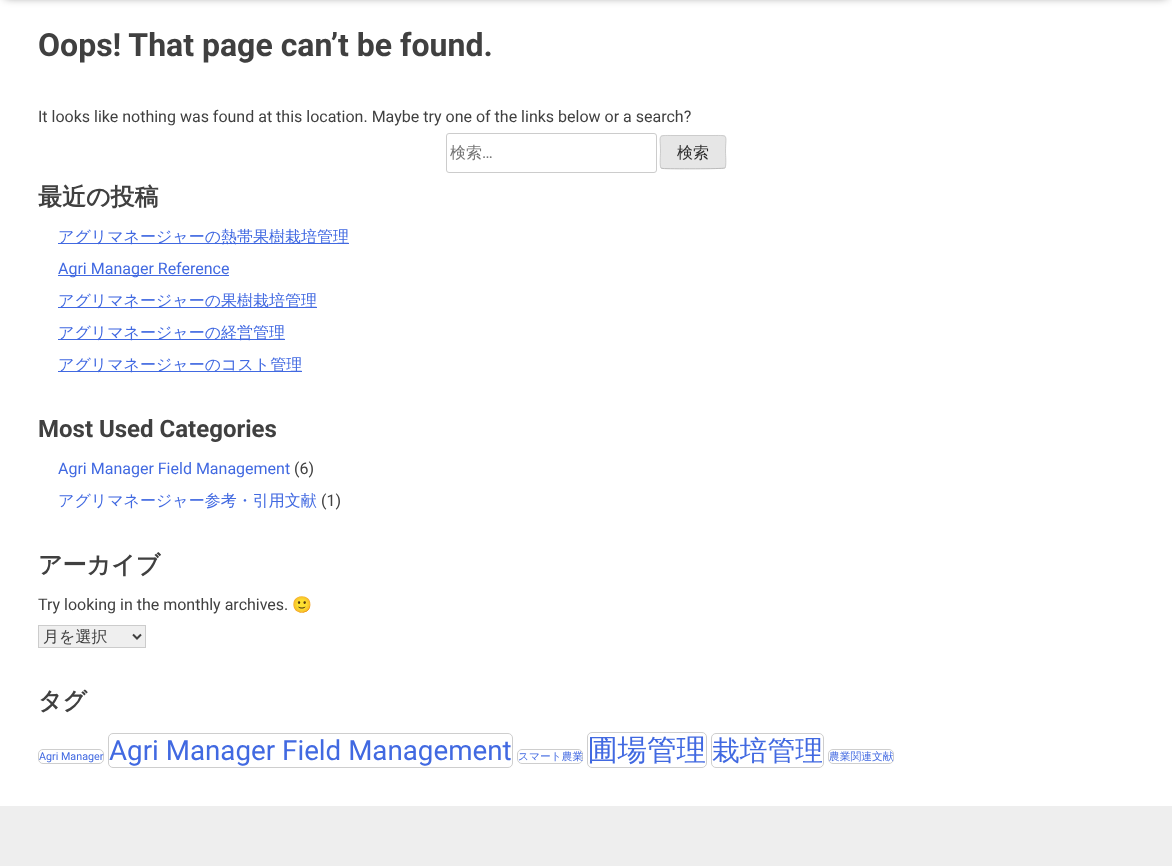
<svg xmlns="http://www.w3.org/2000/svg" width="1172" height="866">
<rect width="100%" height="100%" fill="#fff"/>
<rect x="5" y="-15" width="1162" height="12" fill="#00000080" filter="blur(5px)"/>
<text x="38" y="56" style="font-family:Roboto;font-size:32px;font-weight:bold;fill:#404040">Oops! That page can’t be found.</text>
<text x="38" y="122" style="font-family:Roboto;font-size:16px;fill:#404040">It looks like nothing was found at this location. Maybe try one of the links below or a search?</text>
<rect x="446.5" y="133.5" width="210" height="39" rx="2.5" fill="none" stroke="#ccc"/>
<text x="450" y="158" style="font-family:WenQuanYi Zen Hei;font-size:16px;font-weight:500;fill:#757575">検索</text>
<text x="482" y="158" style="font-family:Roboto;font-size:16px;fill:#757575">…</text>
<rect x="660" y="135" width="66" height="34" rx="3" fill="#e6e6e6"/>
<path d="M725 168h-.5c-1 1-56.5 1-61.5 .5l-2-.5" fill="none" stroke="#bbb"/>
<path d="M661 168c-1.5-2-.5-13.5-.5-16c0-18-4-16.5 12.5-16.5h40c16.5 0 12.5-1.5 12.5 16.5c0 2.5 1 14-.5 16" fill="none" stroke="#ccc"/>
<text x="677" y="158" style="font-family:WenQuanYi Zen Hei;font-size:16px;font-weight:500;fill:#2e2e2e">検索</text>
<text x="38" y="205" style="font-family:WenQuanYi Zen Hei;font-size:24px;font-weight:bold;fill:#404040">最近の投稿</text>
<rect x="58" y="243" width="291" height="1" fill="#4169e1"/>
<text x="58" y="242" style="font-family:WenQuanYi Zen Hei;font-size:16px;font-weight:500;fill:#4169e1">アグリマネージャーの熱帯果樹栽培管理</text>
<rect x="58" y="275" width="171" height="1" fill="#4169e1"/>
<text x="58" y="274" style="font-family:Roboto;font-size:16px;fill:#4169e1">Agri Manager Reference</text>
<rect x="58" y="307" width="259" height="1" fill="#4169e1"/>
<text x="58" y="306" style="font-family:WenQuanYi Zen Hei;font-size:16px;font-weight:500;fill:#4169e1">アグリマネージャーの果樹栽培管理</text>
<rect x="58" y="339" width="227" height="1" fill="#4169e1"/>
<text x="58" y="338" style="font-family:WenQuanYi Zen Hei;font-size:16px;font-weight:500;fill:#4169e1">アグリマネージャーの経営管理</text>
<rect x="58" y="371" width="244" height="1" fill="#4169e1"/>
<text x="58" y="370" style="font-family:WenQuanYi Zen Hei;font-size:16px;font-weight:500;fill:#4169e1">アグリマネージャーのコスト管理</text>
<text x="38" y="437" style="font-family:Roboto;font-size:24px;font-weight:bold;fill:#404040">Most Used Categories</text>
<text x="58" y="474" style="font-family:Roboto;font-size:16px;fill:#4169e1">Agri Manager Field Management</text>
<text x="294" y="474" style="font-family:Roboto;font-size:16px;fill:#404040">(6)</text>
<text x="58" y="506" style="font-family:WenQuanYi Zen Hei;font-size:16px;font-weight:500;fill:#4169e1">アグリマネージャー参考・引用文献</text>
<text x="321" y="506" style="font-family:Roboto;font-size:16px;fill:#404040">(1)</text>
<text x="38" y="573" style="font-family:WenQuanYi Zen Hei;font-size:24px;font-weight:bold;fill:#404040">アーカイブ</text>
<text x="38" y="610" style="font-family:Roboto;font-size:16px;fill:#404040">Try looking in the monthly archives.</text>
<text x="292" y="610" style="font-family:Noto Color Emoji;font-size:16px;fill:#404040">🙂</text>
<rect x="38.5" y="625.5" width="107" height="22" fill="#efefef" stroke="#ccc"/>
<path d="M133 634.5l4 4l4-4" fill="none" stroke="#404040" stroke-width="2"/>
<text x="43" y="642" style="font-family:WenQuanYi Zen Hei;font-size:16px;font-weight:500;fill:#404040">月を選択</text>
<text x="38" y="709" style="font-family:WenQuanYi Zen Hei;font-size:24px;font-weight:bold;fill:#404040">タグ</text>
<rect x="38.5" y="749.5" width="65" height="14" rx="4.5" fill="none" stroke="#cecece"/>
<text x="39" y="760" style="font-family:Roboto;font-size:10.75px;fill:#4169e1">Agri Manager</text>
<rect x="108.5" y="733.5" width="404" height="34" rx="4.5" fill="none" stroke="#cecece"/>
<text x="109" y="760" style="font-family:Roboto;font-size:27.75px;fill:#4169e1">Agri Manager Field Management</text>
<rect x="517.5" y="749.5" width="65" height="14" rx="4.5" fill="none" stroke="#cecece"/>
<text x="518" y="760" style="font-family:WenQuanYi Zen Hei;font-size:10.75px;font-weight:500;fill:#4169e1">スマート農業</text>
<rect x="587.5" y="732.5" width="119" height="35" rx="4.5" fill="none" stroke="#cecece"/>
<text x="588" y="760" style="font-family:WenQuanYi Zen Hei;font-size:29.5px;font-weight:500;fill:#4169e1">圃場管理</text>
<rect x="711.5" y="733.5" width="112" height="34" rx="4.5" fill="none" stroke="#cecece"/>
<text x="712" y="760" style="font-family:WenQuanYi Zen Hei;font-size:27.75px;font-weight:500;fill:#4169e1">栽培管理</text>
<rect x="828.5" y="749.5" width="65" height="14" rx="4.5" fill="none" stroke="#cecece"/>
<text x="829" y="760" style="font-family:WenQuanYi Zen Hei;font-size:10.75px;font-weight:500;fill:#4169e1">農業関連文献</text>
<rect y="806" width="1172" height="60" fill="#eee"/>
</svg>
